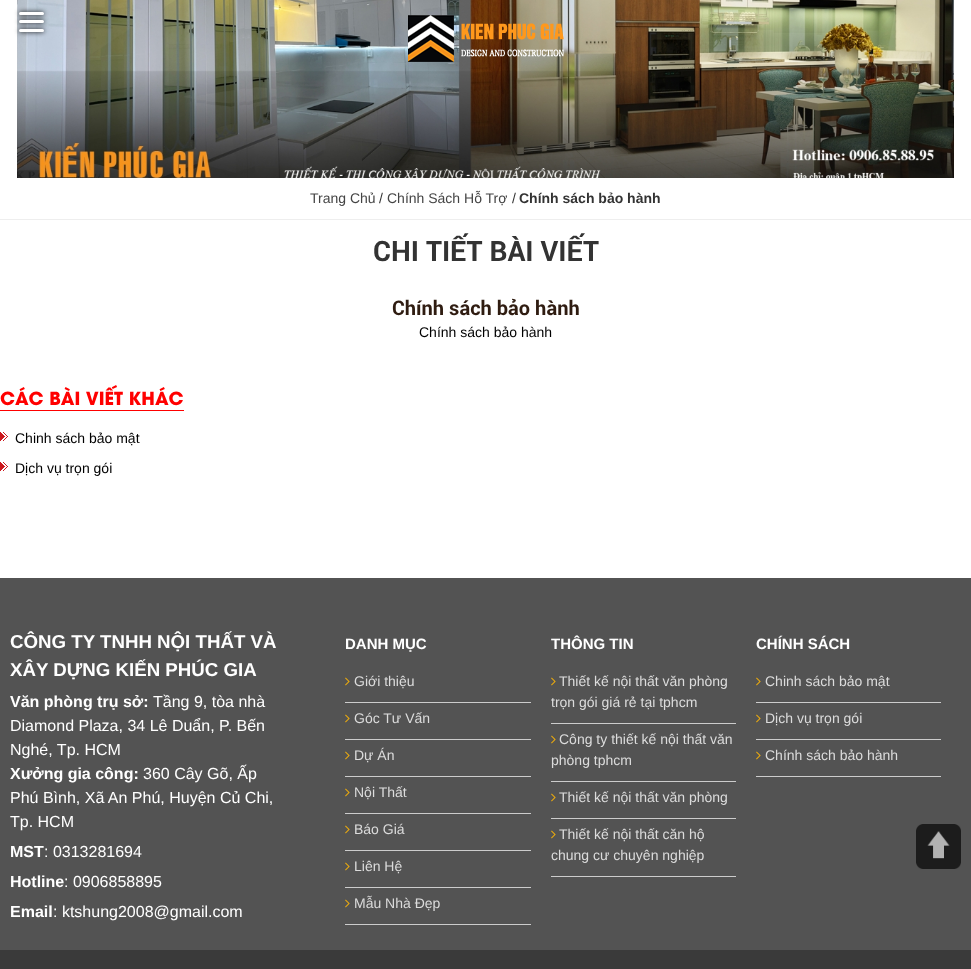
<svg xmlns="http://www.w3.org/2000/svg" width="971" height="969">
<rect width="100%" height="100%" fill="#fff"/>
<image x="17" y="0" width="938" height="178" href="media/1.png"/>
<rect x="19" y="12" width="25" height="3" rx="1.5" fill="#000" filter="blur(2.5px)"/>
<rect x="19" y="12" width="25" height="3" rx="1.5" fill="#fff"/>
<rect x="19" y="20" width="25" height="3" rx="1.5" fill="#000" filter="blur(2.5px)"/>
<rect x="19" y="20" width="25" height="3" rx="1.5" fill="#fff"/>
<rect x="19" y="29" width="25" height="3" rx="1.5" fill="#000" filter="blur(2.5px)"/>
<rect x="19" y="29" width="25" height="3" rx="1.5" fill="#fff"/>
<image x="408" y="15" width="156" height="47" href="media/2.png"/>
<rect y="219" width="971" height="1" fill="#eee"/>
<text x="310" y="203" style="font-family:Liberation Sans;font-size:14px;fill:#444">Trang Chủ</text>
<text x="379" y="203" style="font-family:Liberation Sans;font-size:14px;fill:#333">/</text>
<text x="387" y="203" style="font-family:Liberation Sans;font-size:14px;fill:#444">Chính Sách Hỗ Trợ</text>
<text x="512" y="203" style="font-family:Liberation Sans;font-size:14px;fill:#333">/</text>
<text x="519" y="203" style="font-family:Liberation Sans;font-size:14px;font-weight:bold;fill:#333">Chính sách bảo hành</text>
<text x="373" y="261" style="font-family:Roboto;font-size:28px;font-weight:bold;fill:#333">CHI TIẾT BÀI VIẾT</text>
<text x="392" y="315" style="font-family:Roboto;font-size:20px;font-weight:bold;fill:#2f1c11">Chính sách bảo hành</text>
<text x="419" y="337" style="font-family:Liberation Sans;font-size:14px;fill:#000">Chính sách bảo hành</text>
<rect y="410" width="184" height="1" fill="#f00"/>
<text x="0" y="405" style="font-family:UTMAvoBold;font-size:18px;font-weight:bold;fill:#f00">CÁC BÀI VIẾT KHÁC</text>
<image x="0" y="432" width="8" height="9" href="media/3.png"/>
<text x="15" y="443" style="font-family:Liberation Sans;font-size:14px;fill:#000">Chinh sách bảo mật</text>
<image x="0" y="462" width="8" height="9" href="media/3.png"/>
<text x="15" y="473" style="font-family:Liberation Sans;font-size:14px;fill:#000">Dịch vụ trọn gói</text>
<rect y="578" width="971" height="372" fill="#535353"/>
<text x="10" y="648" style="font-family:Liberation Sans;font-size:18.7px;font-weight:bold;fill:#fff">CÔNG TY TNHH NỘI THẤT VÀ</text>
<text x="10" y="676" style="font-family:Liberation Sans;font-size:18.7px;font-weight:bold;fill:#fff">XÂY DỰNG KIẾN PHÚC GIA</text>
<text x="10" y="707" style="font-family:Liberation Sans;font-size:16px;font-weight:bold;fill:#fff">Văn phòng trụ sở:</text>
<text x="153" y="707" style="font-family:Liberation Sans;font-size:16px;fill:#fff">Tầng 9, tòa nhà</text>
<text x="10" y="731" style="font-family:Liberation Sans;font-size:16px;fill:#fff">Diamond Plaza, 34 Lê Duẩn, P. Bến</text>
<text x="10" y="755" style="font-family:Liberation Sans;font-size:16px;fill:#fff">Nghé, Tp. HCM</text>
<text x="10" y="779" style="font-family:Liberation Sans;font-size:16px;font-weight:bold;fill:#fff">Xưởng gia công:</text>
<text x="143" y="779" style="font-family:Liberation Sans;font-size:16px;fill:#fff">360 Cây Gõ, Ấp</text>
<text x="10" y="803" style="font-family:Liberation Sans;font-size:16px;fill:#fff">Phú Bình, Xã An Phú, Huyện Củ Chi,</text>
<text x="10" y="827" style="font-family:Liberation Sans;font-size:16px;fill:#fff">Tp. HCM</text>
<text x="10" y="857" style="font-family:Liberation Sans;font-size:16px;font-weight:bold;fill:#fff">MST</text>
<text x="44" y="857" style="font-family:Liberation Sans;font-size:16px;fill:#fff">: 0313281694</text>
<text x="10" y="887" style="font-family:Liberation Sans;font-size:16px;font-weight:bold;fill:#fff">Hotline</text>
<text x="64" y="887" style="font-family:Liberation Sans;font-size:16px;fill:#fff">: 0906858895</text>
<text x="10" y="917" style="font-family:Liberation Sans;font-size:16px;font-weight:bold;fill:#fff">Email</text>
<text x="53" y="917" style="font-family:Liberation Sans;font-size:16px;fill:#fff">: ktshung2008@gmail.com</text>
<text x="345" y="649" style="font-family:Liberation Sans;font-size:15px;font-weight:bold;fill:#fff">DANH MỤC</text>
<rect x="345" y="702" width="186" height="1" fill="#ccc"/>
<image x="345" y="677" width="5" height="9" href="media/4.png"/>
<text x="354" y="686" style="font-family:Liberation Sans;font-size:14px;fill:#dcdcdc">Giới thiệu</text>
<rect x="345" y="739" width="186" height="1" fill="#ccc"/>
<image x="345" y="714" width="5" height="9" href="media/4.png"/>
<text x="354" y="723" style="font-family:Liberation Sans;font-size:14px;fill:#dcdcdc">Góc Tư Vấn</text>
<rect x="345" y="776" width="186" height="1" fill="#ccc"/>
<image x="345" y="751" width="5" height="9" href="media/4.png"/>
<text x="354" y="760" style="font-family:Liberation Sans;font-size:14px;fill:#dcdcdc">Dự Án</text>
<rect x="345" y="813" width="186" height="1" fill="#ccc"/>
<image x="345" y="788" width="5" height="9" href="media/4.png"/>
<text x="354" y="797" style="font-family:Liberation Sans;font-size:14px;fill:#dcdcdc">Nội Thất</text>
<rect x="345" y="850" width="186" height="1" fill="#ccc"/>
<image x="345" y="825" width="5" height="9" href="media/4.png"/>
<text x="354" y="834" style="font-family:Liberation Sans;font-size:14px;fill:#dcdcdc">Báo Giá</text>
<rect x="345" y="887" width="186" height="1" fill="#ccc"/>
<image x="345" y="862" width="5" height="9" href="media/4.png"/>
<text x="354" y="871" style="font-family:Liberation Sans;font-size:14px;fill:#dcdcdc">Liên Hệ</text>
<rect x="345" y="924" width="186" height="1" fill="#ccc"/>
<image x="345" y="899" width="5" height="9" href="media/4.png"/>
<text x="354" y="908" style="font-family:Liberation Sans;font-size:14px;fill:#dcdcdc">Mẫu Nhà Đẹp</text>
<text x="551" y="649" style="font-family:Liberation Sans;font-size:15px;font-weight:bold;fill:#fff">THÔNG TIN</text>
<rect x="551" y="723" width="185" height="1" fill="#ccc"/>
<image x="551" y="677" width="5" height="9" href="media/4.png"/>
<text x="559" y="686" style="font-family:Liberation Sans;font-size:14px;fill:#dcdcdc">Thiết kế nội thất văn phòng</text>
<text x="551" y="707" style="font-family:Liberation Sans;font-size:14px;fill:#dcdcdc">trọn gói giá rẻ tại tphcm</text>
<rect x="551" y="781" width="185" height="1" fill="#ccc"/>
<image x="551" y="735" width="5" height="9" href="media/4.png"/>
<text x="559" y="744" style="font-family:Liberation Sans;font-size:14px;fill:#dcdcdc">Công ty thiết kế nội thất văn</text>
<text x="551" y="765" style="font-family:Liberation Sans;font-size:14px;fill:#dcdcdc">phòng tphcm</text>
<rect x="551" y="818" width="185" height="1" fill="#ccc"/>
<image x="551" y="793" width="5" height="9" href="media/4.png"/>
<text x="559" y="802" style="font-family:Liberation Sans;font-size:14px;fill:#dcdcdc">Thiết kế nội thất văn phòng</text>
<rect x="551" y="876" width="185" height="1" fill="#ccc"/>
<image x="551" y="830" width="5" height="9" href="media/4.png"/>
<text x="559" y="839" style="font-family:Liberation Sans;font-size:14px;fill:#dcdcdc">Thiết kế nội thất căn hộ</text>
<text x="551" y="860" style="font-family:Liberation Sans;font-size:14px;fill:#dcdcdc">chung cư chuyên nghiệp</text>
<text x="756" y="649" style="font-family:Liberation Sans;font-size:15px;font-weight:bold;fill:#fff">CHÍNH SÁCH</text>
<rect x="756" y="702" width="185" height="1" fill="#ccc"/>
<image x="756" y="677" width="5" height="9" href="media/4.png"/>
<text x="765" y="686" style="font-family:Liberation Sans;font-size:14px;fill:#dcdcdc">Chinh sách bảo mật</text>
<rect x="756" y="739" width="185" height="1" fill="#ccc"/>
<image x="756" y="714" width="5" height="9" href="media/4.png"/>
<text x="765" y="723" style="font-family:Liberation Sans;font-size:14px;fill:#dcdcdc">Dịch vụ trọn gói</text>
<rect x="756" y="776" width="185" height="1" fill="#ccc"/>
<image x="756" y="751" width="5" height="9" href="media/4.png"/>
<text x="765" y="760" style="font-family:Liberation Sans;font-size:14px;fill:#dcdcdc">Chính sách bảo hành</text>
<rect y="950" width="971" height="19" fill="#3a3a3a"/>
<image x="916" y="824" width="45" height="45" href="media/5.png"/>
</svg>
